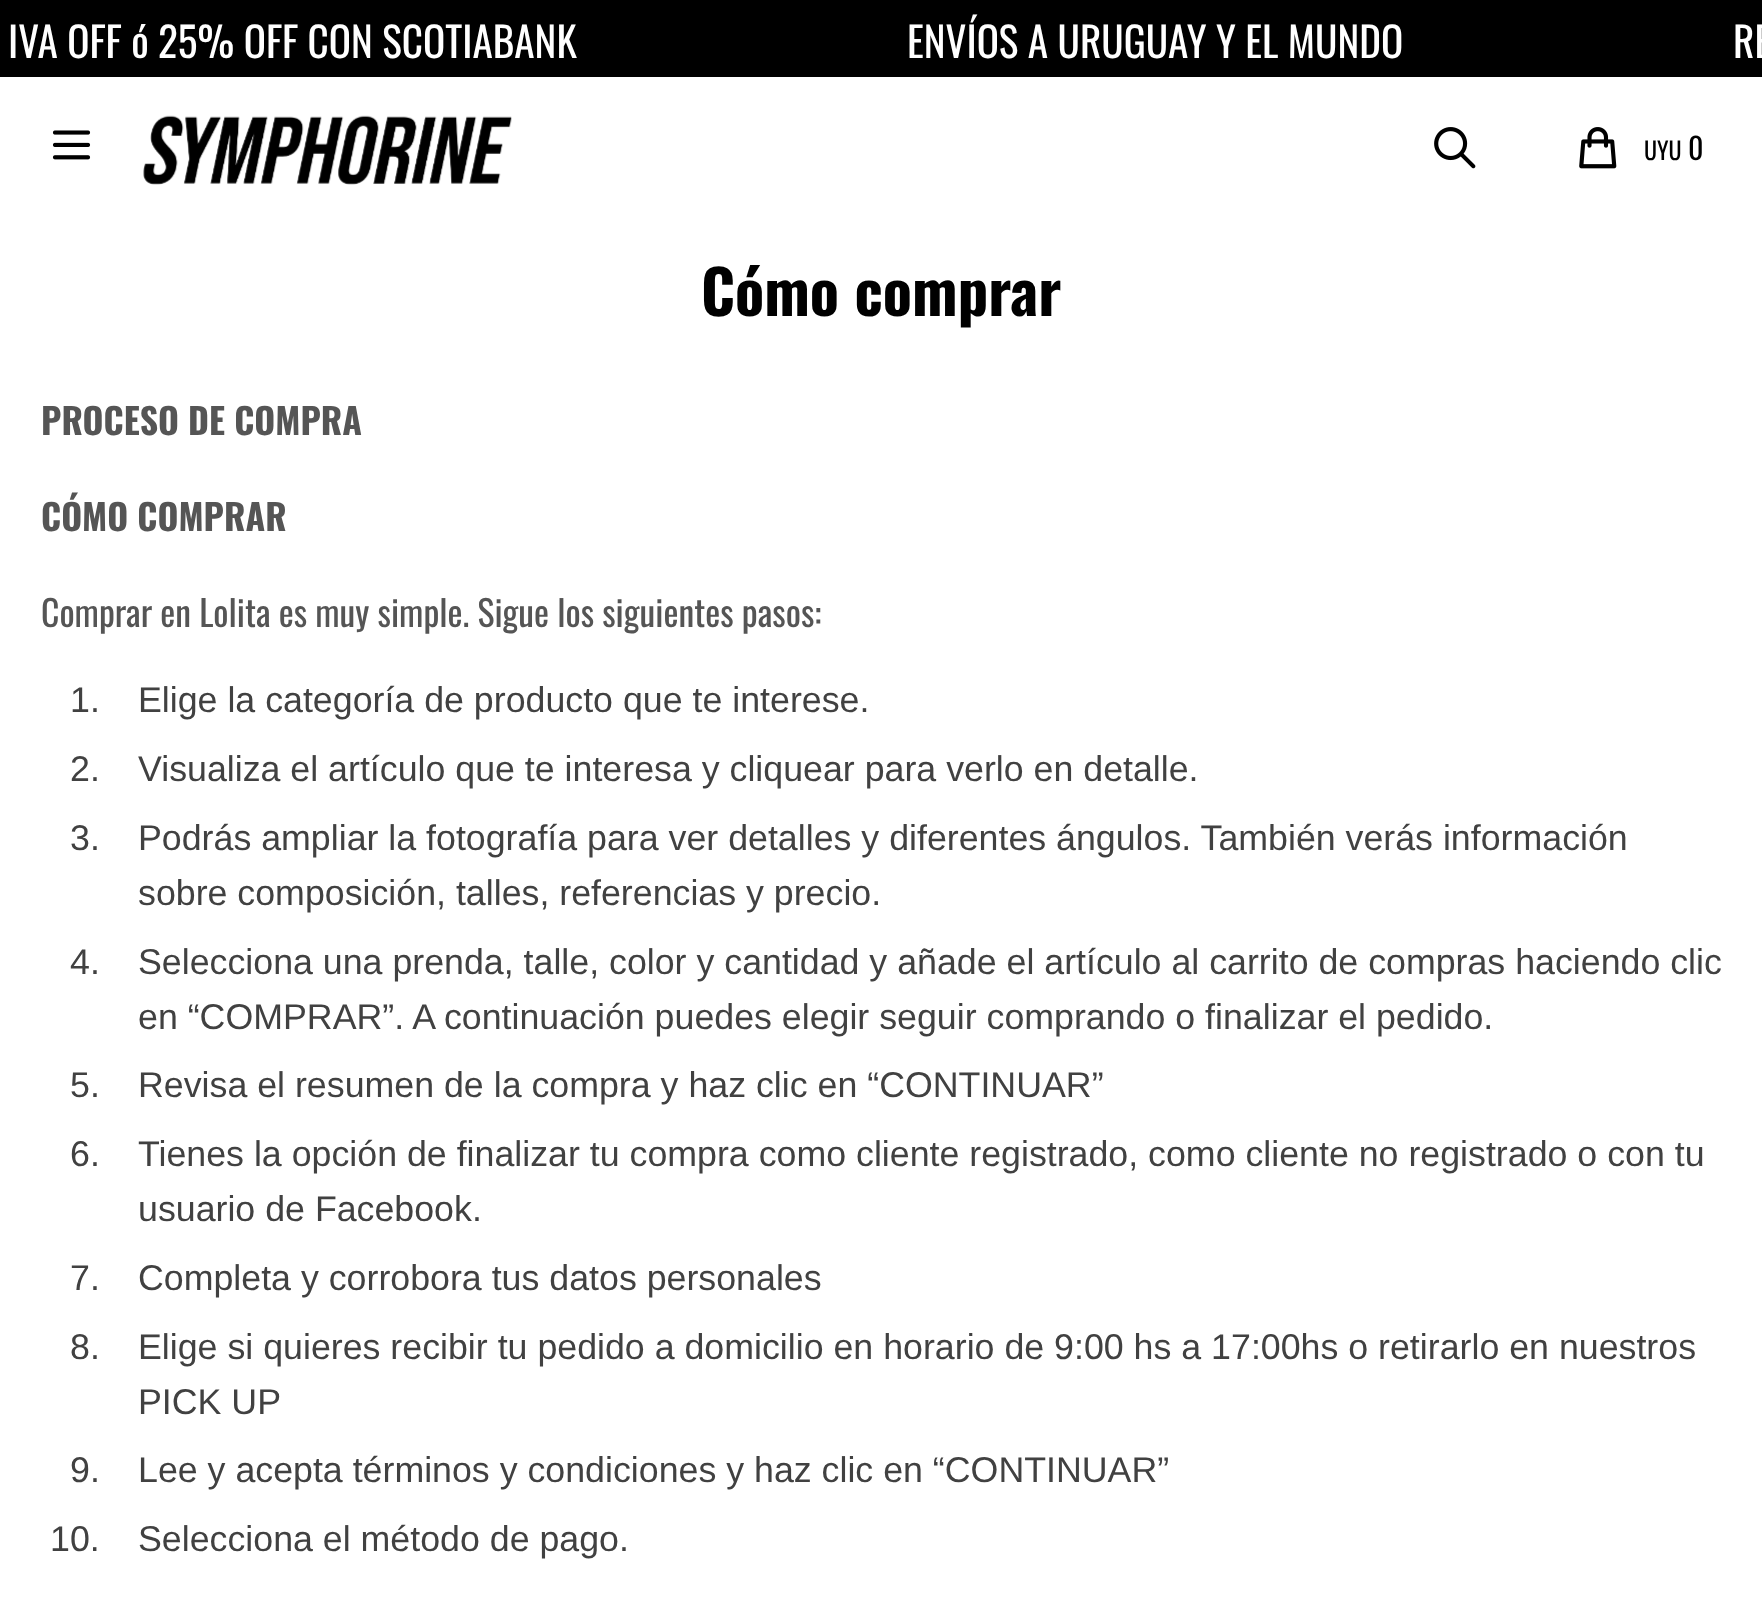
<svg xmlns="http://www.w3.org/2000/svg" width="1762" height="1601">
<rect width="100%" height="100%" fill="#fff"/>
<rect width="1762" height="77" fill="#000"/>
<text x="8" y="58" style="font-family:Oswald;font-size:41.25px;fill:#fff">IVA OFF ó 25% OFF CON SCOTIABANK</text>
<text x="907" y="58" style="font-family:Oswald;font-size:41.25px;fill:#fff">ENVÍOS A URUGUAY Y EL MUNDO</text>
<text x="1733" y="58" style="font-family:Oswald;font-size:41.25px;fill:#fff">RE</text>
<image x="52" y="130" width="39" height="30" href="media/1.png"/>
<image x="143" y="115" width="369" height="70" href="media/2.png"/>
<image x="1434" y="127" width="42" height="42" href="media/3.png"/>
<image x="1579" y="127" width="38" height="42" href="media/4.png"/>
<text x="1644" y="160" style="font-family:Oswald;font-size:24px;fill:#000">UYU</text>
<text x="1688" y="160" style="font-family:Oswald;font-size:30px;fill:#000">0</text>
<text x="701" y="316" style="font-family:Oswald;font-size:60.5px;font-weight:bold;fill:#000">Cómo comprar</text>
<text x="41" y="435" style="font-family:Oswald;font-size:35.75px;font-weight:bold;fill:#555">PROCESO DE COMPRA</text>
<text x="41" y="531" style="font-family:Oswald;font-size:35.75px;font-weight:bold;fill:#555">CÓMO COMPRAR</text>
<text x="41" y="627" style="font-family:Oswald;font-size:35.75px;fill:#555">Comprar en Lolita es muy simple. Sigue los siguientes pasos:</text>
<text x="70" y="712" style="font-family:Liberation Sans;font-size:35.75px;fill:#414141">1.</text>
<text x="138" y="712" style="font-family:Liberation Sans;font-size:35.75px;fill:#414141">Elige la categoría de producto que te interese.</text>
<text x="70" y="781" style="font-family:Liberation Sans;font-size:35.75px;fill:#414141">2.</text>
<text x="138" y="781" style="font-family:Liberation Sans;font-size:35.75px;fill:#414141">Visualiza el artículo que te interesa y cliquear para verlo en detalle.</text>
<text x="70" y="850" style="font-family:Liberation Sans;font-size:35.75px;fill:#414141">3.</text>
<text x="138" y="850" style="font-family:Liberation Sans;font-size:35.75px;fill:#414141">Podrás ampliar la fotografía para ver detalles y diferentes ángulos. También verás información</text>
<text x="138" y="905" style="font-family:Liberation Sans;font-size:35.75px;fill:#414141">sobre composición, talles, referencias y precio.</text>
<text x="70" y="974" style="font-family:Liberation Sans;font-size:35.75px;fill:#414141">4.</text>
<text x="138" y="974" style="font-family:Liberation Sans;font-size:35.75px;fill:#414141">Selecciona una prenda, talle, color y cantidad y añade el artículo al carrito de compras haciendo clic</text>
<text x="138" y="1029" style="font-family:Liberation Sans;font-size:35.75px;fill:#414141">en “COMPRAR”. A continuación puedes elegir seguir comprando o finalizar el pedido.</text>
<text x="70" y="1097" style="font-family:Liberation Sans;font-size:35.75px;fill:#414141">5.</text>
<text x="138" y="1097" style="font-family:Liberation Sans;font-size:35.75px;fill:#414141">Revisa el resumen de la compra y haz clic en “CONTINUAR”</text>
<text x="70" y="1166" style="font-family:Liberation Sans;font-size:35.75px;fill:#414141">6.</text>
<text x="138" y="1166" style="font-family:Liberation Sans;font-size:35.75px;fill:#414141">Tienes la opción de finalizar tu compra como cliente registrado, como cliente no registrado o con tu</text>
<text x="138" y="1221" style="font-family:Liberation Sans;font-size:35.75px;fill:#414141">usuario de Facebook.</text>
<text x="70" y="1290" style="font-family:Liberation Sans;font-size:35.75px;fill:#414141">7.</text>
<text x="138" y="1290" style="font-family:Liberation Sans;font-size:35.75px;fill:#414141">Completa y corrobora tus datos personales</text>
<text x="70" y="1359" style="font-family:Liberation Sans;font-size:35.75px;fill:#414141">8.</text>
<text x="138" y="1359" style="font-family:Liberation Sans;font-size:35.75px;fill:#414141">Elige si quieres recibir tu pedido a domicilio en horario de 9:00 hs a 17:00hs o retirarlo en nuestros</text>
<text x="138" y="1414" style="font-family:Liberation Sans;font-size:35.75px;fill:#414141">PICK UP</text>
<text x="70" y="1482" style="font-family:Liberation Sans;font-size:35.75px;fill:#414141">9.</text>
<text x="138" y="1482" style="font-family:Liberation Sans;font-size:35.75px;fill:#414141">Lee y acepta términos y condiciones y haz clic en “CONTINUAR”</text>
<text x="50" y="1551" style="font-family:Liberation Sans;font-size:35.75px;fill:#414141">10.</text>
<text x="138" y="1551" style="font-family:Liberation Sans;font-size:35.75px;fill:#414141">Selecciona el método de pago.</text>
</svg>
